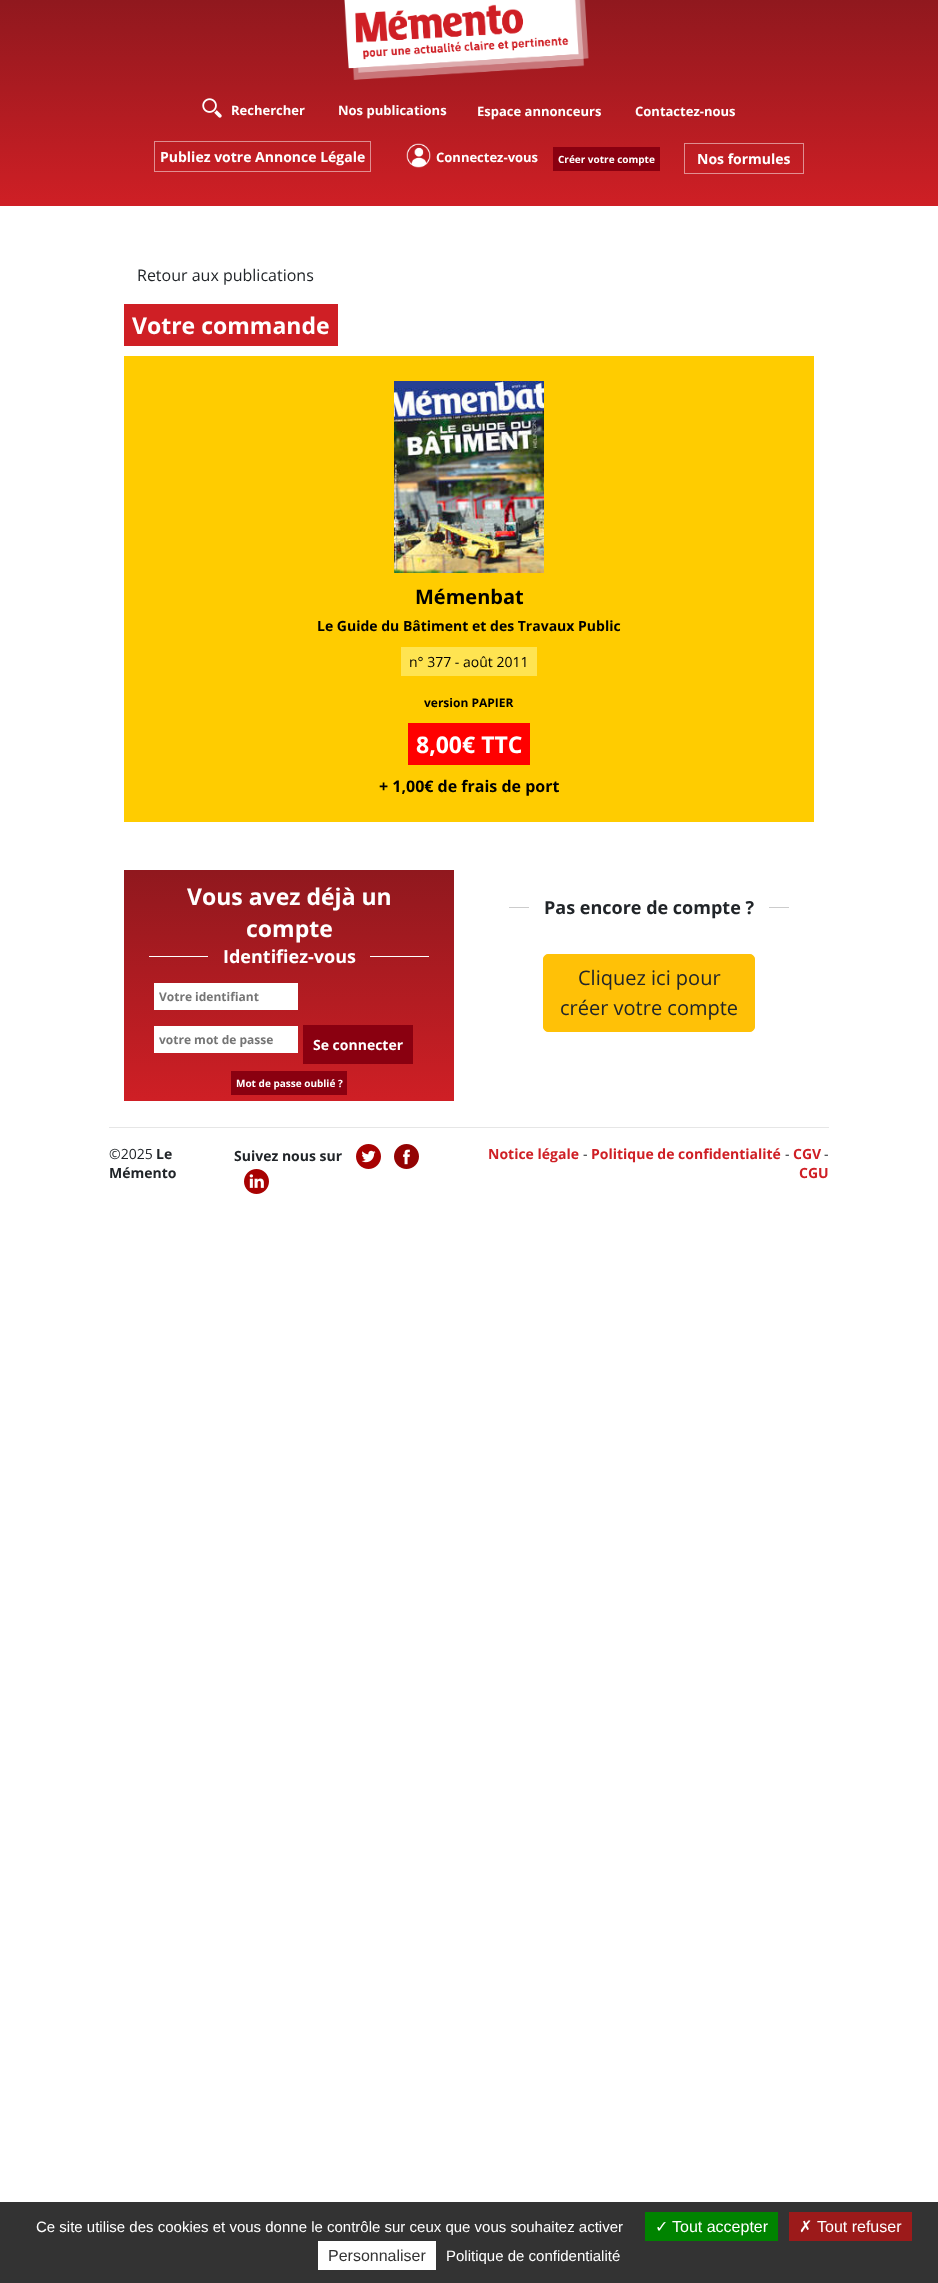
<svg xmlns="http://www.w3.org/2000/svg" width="938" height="2283">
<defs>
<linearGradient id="g1" gradientUnits="userSpaceOnUse" x1="469" y1="0" x2="469" y2="206"><stop offset="0" stop-color="#90181e"/><stop offset="1" stop-color="#cf1f25"/></linearGradient>
<linearGradient id="g2" gradientUnits="userSpaceOnUse" x1="289" y1="870" x2="289" y2="1101"><stop offset="0" stop-color="#90181e"/><stop offset="1" stop-color="#cf1f25"/></linearGradient>
</defs>
<rect width="100%" height="100%" fill="#fff"/>
<rect width="938" height="206" fill="url(#g1)"/>
<image x="344" y="0" width="245" height="80" href="media/1.png"/>
<image x="202" y="98" width="20" height="20" href="media/2.png"/>
<text x="231" y="115" style="font-family:Open Sans;font-size:13px;font-weight:bold;fill:#fff">Rechercher</text>
<text x="338" y="115" style="font-family:Open Sans;font-size:13px;font-weight:bold;fill:#fff">Nos publications</text>
<text x="477" y="116" style="font-family:Open Sans;font-size:13px;font-weight:bold;fill:#fff">Espace annonceurs</text>
<text x="635" y="116" style="font-family:Open Sans;font-size:13px;font-weight:bold;fill:#fff">Contactez-nous</text>
<rect x="154.5" y="141.5" width="216" height="30" fill="none" stroke="#ffffff80"/>
<text x="160" y="162" style="font-family:Open Sans;font-size:14px;font-weight:bold;fill:#fff">Publiez votre Annonce Légale</text>
<image x="406" y="143" width="25" height="25" href="media/3.png"/>
<text x="436" y="162" style="font-family:Open Sans;font-size:13px;font-weight:bold;fill:#fff">Connectez-vous</text>
<rect x="553" y="147" width="107" height="24" fill="#8a0010"/>
<text x="558" y="163" style="font-family:Open Sans;font-size:10px;font-weight:bold;fill:#fff">Créer votre compte</text>
<rect x="684.5" y="143.5" width="119" height="30" fill="none" stroke="#ffffff80"/>
<text x="697" y="164" style="font-family:Open Sans;font-size:14px;font-weight:bold;fill:#fff">Nos formules</text>
<text x="137" y="281" style="font-family:Open Sans;font-size:16px;fill:#212529">Retour aux publications</text>
<rect x="124" y="304" width="214" height="42" fill="#cf1f25"/>
<text x="132" y="334" style="font-family:Open Sans;font-size:23px;font-weight:bold;fill:#fff">Votre commande</text>
<rect x="124" y="356" width="690" height="466" fill="#fc0"/>
<image x="394" y="381" width="150" height="192" href="media/4.png"/>
<text x="415" y="604" style="font-family:Open Sans;font-size:20px;font-weight:bold;fill:#000">Mémenbat</text>
<text x="317" y="631" style="font-family:Open Sans;font-size:14px;font-weight:bold;fill:#000">Le Guide du Bâtiment et des Travaux Public</text>
<rect x="401" y="647" width="136" height="29" fill="#ffe451"/>
<text x="409" y="667" style="font-family:Open Sans;font-size:14px;fill:#000">n° 377 - août 2011</text>
<text x="424" y="707" style="font-family:Open Sans;font-size:12px;font-weight:bold;fill:#000">version PAPIER</text>
<rect x="408" y="723" width="122" height="42" fill="#f00"/>
<text x="416" y="753" style="font-family:Open Sans;font-size:23px;font-weight:bold;fill:#fff">8,00€ TTC</text>
<text x="379" y="792" style="font-family:Open Sans;font-size:16px;font-weight:bold;fill:#000">+ 1,00€ de frais de port</text>
<rect x="124" y="870" width="330" height="231" fill="url(#g2)"/>
<text x="187" y="905" style="font-family:Open Sans;font-size:23px;font-weight:bold;fill:#fff">Vous avez déjà un</text>
<text x="246" y="937" style="font-family:Open Sans;font-size:23px;font-weight:bold;fill:#fff">compte</text>
<rect x="149" y="956" width="59" height="1" fill="#fff"/>
<text x="223" y="963" style="font-family:Open Sans;font-size:18px;font-weight:bold;fill:#fff">Identifiez-vous</text>
<rect x="370" y="956" width="59" height="1" fill="#fff"/>
<rect x="154" y="983" width="144" height="27" fill="#fff"/>
<text x="159" y="1001" style="font-family:Open Sans;font-size:12px;font-weight:bold;fill:#757575">Votre identifiant</text>
<rect x="154" y="1026" width="144" height="27" fill="#fff"/>
<text x="159" y="1044" style="font-family:Open Sans;font-size:12px;font-weight:bold;fill:#757575">votre mot de passe</text>
<rect x="303" y="1025" width="110" height="39" fill="#8a0010"/>
<text x="313" y="1050" style="font-family:Open Sans;font-size:14px;font-weight:bold;fill:#fff">Se connecter</text>
<rect x="231" y="1071" width="116" height="24" fill="#8a0010"/>
<text x="236" y="1087" style="font-family:Open Sans;font-size:10px;font-weight:bold;fill:#fff">Mot de passe oublié ?</text>
<rect x="509" y="907" width="20" height="1" fill="#ccc"/>
<text x="544" y="914" style="font-family:Open Sans;font-size:18px;font-weight:bold;fill:#212529">Pas encore de compte ?</text>
<rect x="769" y="907" width="20" height="1" fill="#ccc"/>
<rect x="543.5" y="954.5" width="211" height="77" rx="4.5" fill="#ffc107" stroke="#ffc107"/>
<text x="578" y="985" style="font-family:Open Sans;font-size:20px;fill:#212529">Cliquez ici pour</text>
<text x="560" y="1015" style="font-family:Open Sans;font-size:20px;fill:#212529">créer votre compte</text>
<rect x="109" y="1127" width="720" height="1" fill="#e6e6e6"/>
<text x="109" y="1159" style="font-family:Open Sans;font-size:14px;fill:#212529">©2025</text>
<text x="156" y="1159" style="font-family:Open Sans;font-size:14px;font-weight:bold;fill:#212529">Le</text>
<text x="109" y="1178" style="font-family:Open Sans;font-size:14px;font-weight:bold;fill:#212529">Mémento</text>
<text x="234" y="1161" style="font-family:Open Sans;font-size:14px;font-weight:bold;fill:#212529">Suivez nous sur</text>
<image x="356" y="1144" width="25" height="25" href="media/5.png"/>
<image x="394" y="1144" width="25" height="25" href="media/6.png"/>
<image x="244" y="1169" width="25" height="25" href="media/7.png"/>
<text x="488" y="1159" style="font-family:Open Sans;font-size:14px;font-weight:bold;fill:#cf1f25">Notice légale</text>
<text x="583" y="1159" style="font-family:Open Sans;font-size:14px;fill:#212529">-</text>
<text x="591" y="1159" style="font-family:Open Sans;font-size:14px;font-weight:bold;fill:#cf1f25">Politique de confidentialité</text>
<text x="785" y="1159" style="font-family:Open Sans;font-size:14px;fill:#212529">-</text>
<text x="793" y="1159" style="font-family:Open Sans;font-size:14px;font-weight:bold;fill:#cf1f25">CGV</text>
<text x="824" y="1159" style="font-family:Open Sans;font-size:14px;fill:#212529">-</text>
<text x="799" y="1178" style="font-family:Open Sans;font-size:14px;font-weight:bold;fill:#cf1f25">CGU</text>
<rect y="2202" width="938" height="81" fill="#333"/>
<text x="36" y="2232" style="font-family:Liberation Sans;font-size:15px;fill:#fff">Ce site utilise des cookies et vous donne le contrôle sur ceux que vous souhaitez activer</text>
<rect x="645" y="2212" width="133" height="29" fill="#008300"/>
<text x="655" y="2232" style="font-family:DejaVu Sans;font-size:16px;fill:#fff">✓</text>
<text x="672" y="2232" style="font-family:Liberation Sans;font-size:16px;fill:#fff">Tout accepter</text>
<rect x="789" y="2212" width="123" height="29" fill="#9c1a1a"/>
<text x="799" y="2232" style="font-family:DejaVu Sans;font-size:16px;fill:#fff">✗</text>
<text x="817" y="2232" style="font-family:Liberation Sans;font-size:16px;fill:#fff">Tout refuser</text>
<rect x="318" y="2241" width="118" height="29" fill="#fff"/>
<text x="328" y="2261" style="font-family:Liberation Sans;font-size:16px;fill:#333">Personnaliser</text>
<text x="446" y="2261" style="font-family:Liberation Sans;font-size:15px;fill:#fff">Politique de confidentialité</text>
</svg>
